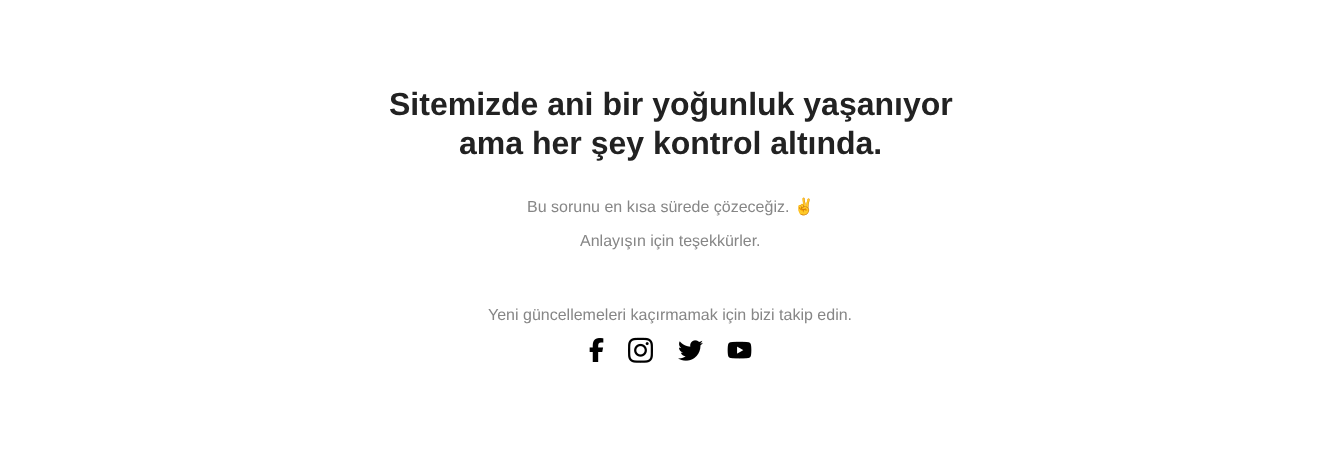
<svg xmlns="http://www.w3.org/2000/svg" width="1341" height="450">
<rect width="100%" height="100%" fill="#fff"/>
<text x="389" y="115" style="font-family:Liberation Sans;font-size:32px;font-weight:bold;fill:#222">Sitemizde ani bir yoğunluk yaşanıyor</text>
<text x="459" y="154" style="font-family:Liberation Sans;font-size:32px;font-weight:bold;fill:#222">ama her şey kontrol altında.</text>
<text x="527" y="212" style="font-family:Liberation Sans;font-size:16px;fill:#868686">Bu sorunu en kısa sürede çözeceğiz.</text>
<text x="794" y="212" style="font-family:Noto Color Emoji;font-size:16px;fill:#868686">✌️</text>
<text x="580" y="246" style="font-family:Liberation Sans;font-size:16px;fill:#868686">Anlayışın için teşekkürler.</text>
<text x="488" y="320" style="font-family:Liberation Sans;font-size:16px;fill:#868686">Yeni güncellemeleri kaçırmamak için bizi takip edin.</text>
<image x="589" y="338" width="15" height="24" href="media/1.png"/>
<image x="628" y="337" width="25" height="26" href="media/2.png"/>
<image x="678" y="340" width="25" height="21" href="media/3.png"/>
<image x="727" y="341" width="25" height="18" href="media/4.png"/>
</svg>
